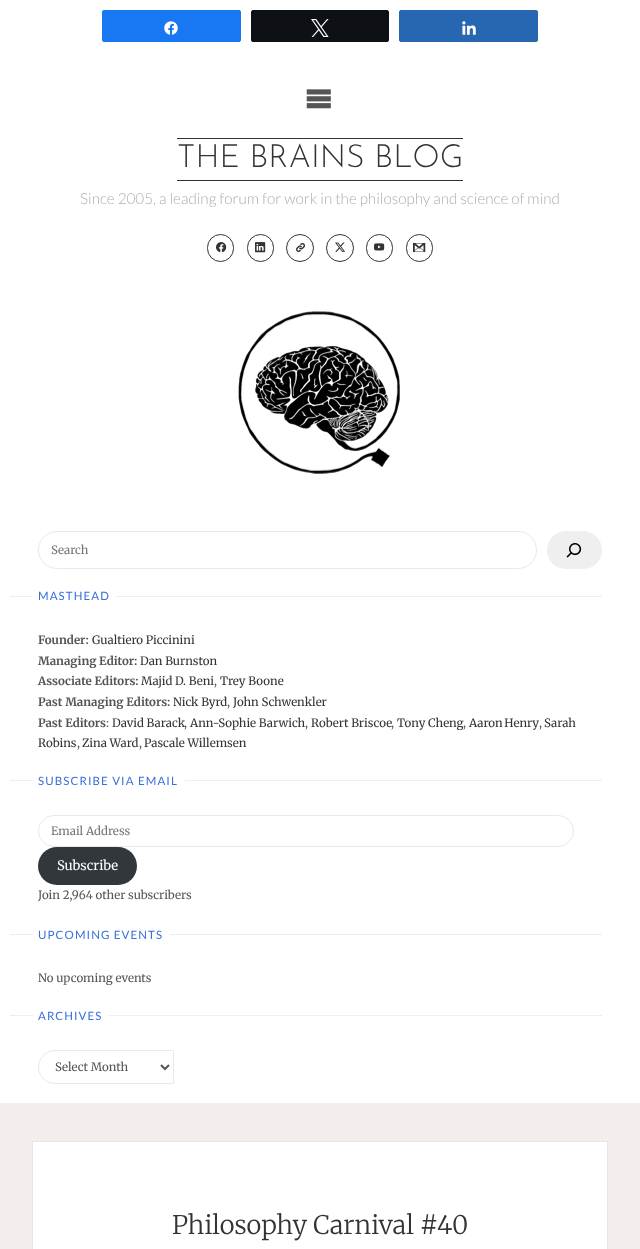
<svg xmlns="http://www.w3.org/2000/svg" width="640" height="1249">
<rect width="100%" height="100%" fill="#f3eeeb"/>
<rect width="640" height="1103" fill="#fff"/>
<rect x="102.5" y="10.5" width="138" height="31" rx="1.5" fill="#1877f2" stroke="#1877f2"/>
<image x="164" y="21" width="14" height="14" href="media/1.png"/>
<rect x="251.5" y="10.5" width="137" height="31" rx="1.5" fill="#0d1014" stroke="#0d1014"/>
<image x="311" y="19" width="18" height="18" href="media/2.png"/>
<rect x="399.5" y="10.5" width="138" height="31" rx="1.5" fill="#2767b1" stroke="#2767b1"/>
<image x="462" y="21" width="14" height="14" href="media/3.png"/>
<image x="306" y="89" width="25" height="20" href="media/4.png"/>
<rect x="177" y="138" width="286" height="1" fill="#333"/>
<rect x="177" y="180" width="286" height="1" fill="#333"/>
<text x="177" y="167" style="font-family:Josefin Sans;font-size:31.9px;font-weight:300;fill:#333">THE BRAINS BLOG</text>
<text x="80" y="204" style="font-family:Lato;font-size:15.3px;font-weight:300;fill:#aeaeae">Since 2005, a leading forum for work in the philosophy and science of mind</text>
<rect x="207.5" y="234.5" width="26" height="27" rx="13" fill="none" stroke="#333"/>
<image x="216" y="242" width="11" height="11" href="media/5.png"/>
<rect x="247.5" y="234.5" width="26" height="27" rx="13" fill="none" stroke="#333"/>
<image x="255" y="242" width="11" height="11" href="media/6.png"/>
<circle cx="300" cy="248" r="13.5" fill="none" stroke="#333"/>
<image x="296" y="243" width="10" height="9" href="media/7.png"/>
<circle cx="340" cy="248" r="13.5" fill="none" stroke="#333"/>
<image x="335" y="242" width="11" height="10" href="media/8.png"/>
<rect x="366.5" y="234.5" width="26" height="27" rx="13" fill="none" stroke="#333"/>
<image x="374" y="243" width="11" height="8" href="media/9.png"/>
<rect x="406.5" y="234.5" width="26" height="27" rx="13" fill="none" stroke="#333"/>
<image x="413" y="242" width="13" height="11" href="media/10.png"/>
<image x="238" y="311" width="162" height="163" href="media/11.png"/>
<rect x="38.5" y="531.5" width="498" height="37" rx="18.5" fill="none" stroke="#e9e9e9"/>
<text x="51" y="554" style="font-family:Merriweather;font-size:11.5px;fill:#757575">Search</text>
<rect x="547" y="531" width="55" height="38" rx="19" fill="#efefef"/>
<image x="566" y="543" width="16" height="15" href="media/12.png"/>
<rect x="10" y="596" width="592" height="1" fill="#eee"/>
<rect x="33" y="596" width="83" height="1" fill="#fff"/>
<text x="38" y="600" style="font-family:Lato;font-size:11.5px;letter-spacing:1.1px;fill:#396fdb">MASTHEAD</text>
<text x="38" y="644" style="font-family:Merriweather;font-size:11.5px;font-weight:bold;fill:#555">Founder:</text>
<text x="92" y="644" style="font-family:Merriweather;font-size:11.5px;fill:#333">Gualtiero Piccinini</text>
<text x="38" y="665" style="font-family:Merriweather;font-size:11.5px;font-weight:bold;fill:#555">Managing Editor:</text>
<text x="140" y="665" style="font-family:Merriweather;font-size:11.5px;fill:#333">Dan Burnston</text>
<text x="38" y="685" style="font-family:Merriweather;font-size:11.5px;font-weight:bold;fill:#555">Associate Editors:</text>
<text x="141" y="685" style="font-family:Merriweather;font-size:11.5px;fill:#333">Majid D. Beni</text>
<text x="214" y="685" style="font-family:Merriweather;font-size:11.5px;fill:#555">,</text>
<text x="220" y="685" style="font-family:Merriweather;font-size:11.5px;fill:#333">Trey Boone</text>
<text x="38" y="706" style="font-family:Merriweather;font-size:11.5px;font-weight:bold;fill:#555">Past Managing Editors:</text>
<text x="173" y="706" style="font-family:Merriweather;font-size:11.5px;fill:#333">Nick Byrd</text>
<text x="227" y="706" style="font-family:Merriweather;font-size:11.5px;fill:#555">,</text>
<text x="233" y="706" style="font-family:Merriweather;font-size:11.5px;fill:#333">John Schwenkler</text>
<text x="38" y="727" style="font-family:Merriweather;font-size:11.5px;font-weight:bold;fill:#555">Past Editors</text>
<text x="106" y="727" style="font-family:Merriweather;font-size:11.5px;fill:#555">:</text>
<text x="112" y="727" style="font-family:Merriweather;font-size:11.5px;fill:#333">David Barack</text>
<text x="184" y="727" style="font-family:Merriweather;font-size:11.5px;fill:#555">,</text>
<text x="190" y="727" style="font-family:Merriweather;font-size:11.5px;fill:#333">Ann-Sophie Barwich</text>
<text x="305" y="727" style="font-family:Merriweather;font-size:11.5px;fill:#555">,</text>
<text x="311" y="727" style="font-family:Merriweather;font-size:11.5px;fill:#333">Robert Briscoe</text>
<text x="391" y="727" style="font-family:Merriweather;font-size:11.5px;fill:#555">,</text>
<text x="397" y="727" style="font-family:Merriweather;font-size:11.5px;fill:#333">Tony Cheng</text>
<text x="463" y="727" style="font-family:Merriweather;font-size:11.5px;fill:#555">,</text>
<text x="469" y="727" word-spacing="-1" style="font-family:Merriweather;font-size:11.5px;fill:#333">Aaron Henry</text>
<text x="539" y="727" style="font-family:Merriweather;font-size:11.5px;fill:#555">,</text>
<text x="544" y="727" style="font-family:Merriweather;font-size:11.5px;fill:#333">Sarah</text>
<text x="38" y="747" style="font-family:Merriweather;font-size:11.5px;fill:#333">Robins</text>
<text x="77" y="747" style="font-family:Merriweather;font-size:11.5px;fill:#555">,</text>
<text x="82" y="747" style="font-family:Merriweather;font-size:11.5px;fill:#333">Zina Ward</text>
<text x="139" y="747" style="font-family:Merriweather;font-size:11.5px;fill:#555">,</text>
<text x="144" y="747" style="font-family:Merriweather;font-size:11.5px;fill:#333">Pascale Willemsen</text>
<rect x="10" y="780" width="592" height="1" fill="#eee"/>
<rect x="33" y="780" width="152" height="1" fill="#fff"/>
<text x="38" y="785" style="font-family:Lato;font-size:11.5px;letter-spacing:1.1px;fill:#396fdb">SUBSCRIBE VIA EMAIL</text>
<rect x="38.5" y="815.5" width="535" height="31" rx="15.5" fill="none" stroke="#e9e9e9"/>
<text x="51" y="835" style="font-family:Merriweather;font-size:11.5px;fill:#757575">Email Address</text>
<rect x="38" y="847" width="99" height="38" rx="19" fill="#32373c"/>
<text x="57" y="870" style="font-family:Merriweather;font-size:13px;fill:#fff">Subscribe</text>
<text x="38" y="899" style="font-family:Merriweather;font-size:11.5px;fill:#555">Join 2,964 other subscribers</text>
<rect x="10" y="934" width="592" height="1" fill="#eee"/>
<rect x="33" y="934" width="137" height="1" fill="#fff"/>
<text x="38" y="939" style="font-family:Lato;font-size:11.5px;letter-spacing:1.1px;fill:#396fdb">UPCOMING EVENTS</text>
<text x="38" y="982" style="font-family:Merriweather;font-size:11.5px;fill:#555">No upcoming events</text>
<rect x="10" y="1015" width="592" height="1" fill="#eee"/>
<rect x="33" y="1015" width="76" height="1" fill="#fff"/>
<text x="38" y="1020" style="font-family:Lato;font-size:11.5px;letter-spacing:1.1px;fill:#396fdb">ARCHIVES</text>
<path d="M55 1050.5h118.5v33h-118.5c-9 0-16.5-7.5-16.5-16.5c0-9 7.5-16.5 16.5-16.5z" fill="none" stroke="#e9e9e9"/>
<path d="M161 1065l4 4l4-4" fill="none" stroke="#555" stroke-width="2"/>
<text x="55" y="1071" style="font-family:Merriweather;font-size:11.5px;fill:#555">Select Month</text>
<rect x="32.5" y="1141.5" width="575" height="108" fill="#fff" stroke="#e6e6e6"/>
<text x="172" y="1234" style="font-family:Merriweather;font-size:25.5px;font-weight:300;fill:#333">Philosophy Carnival #40</text>
</svg>
